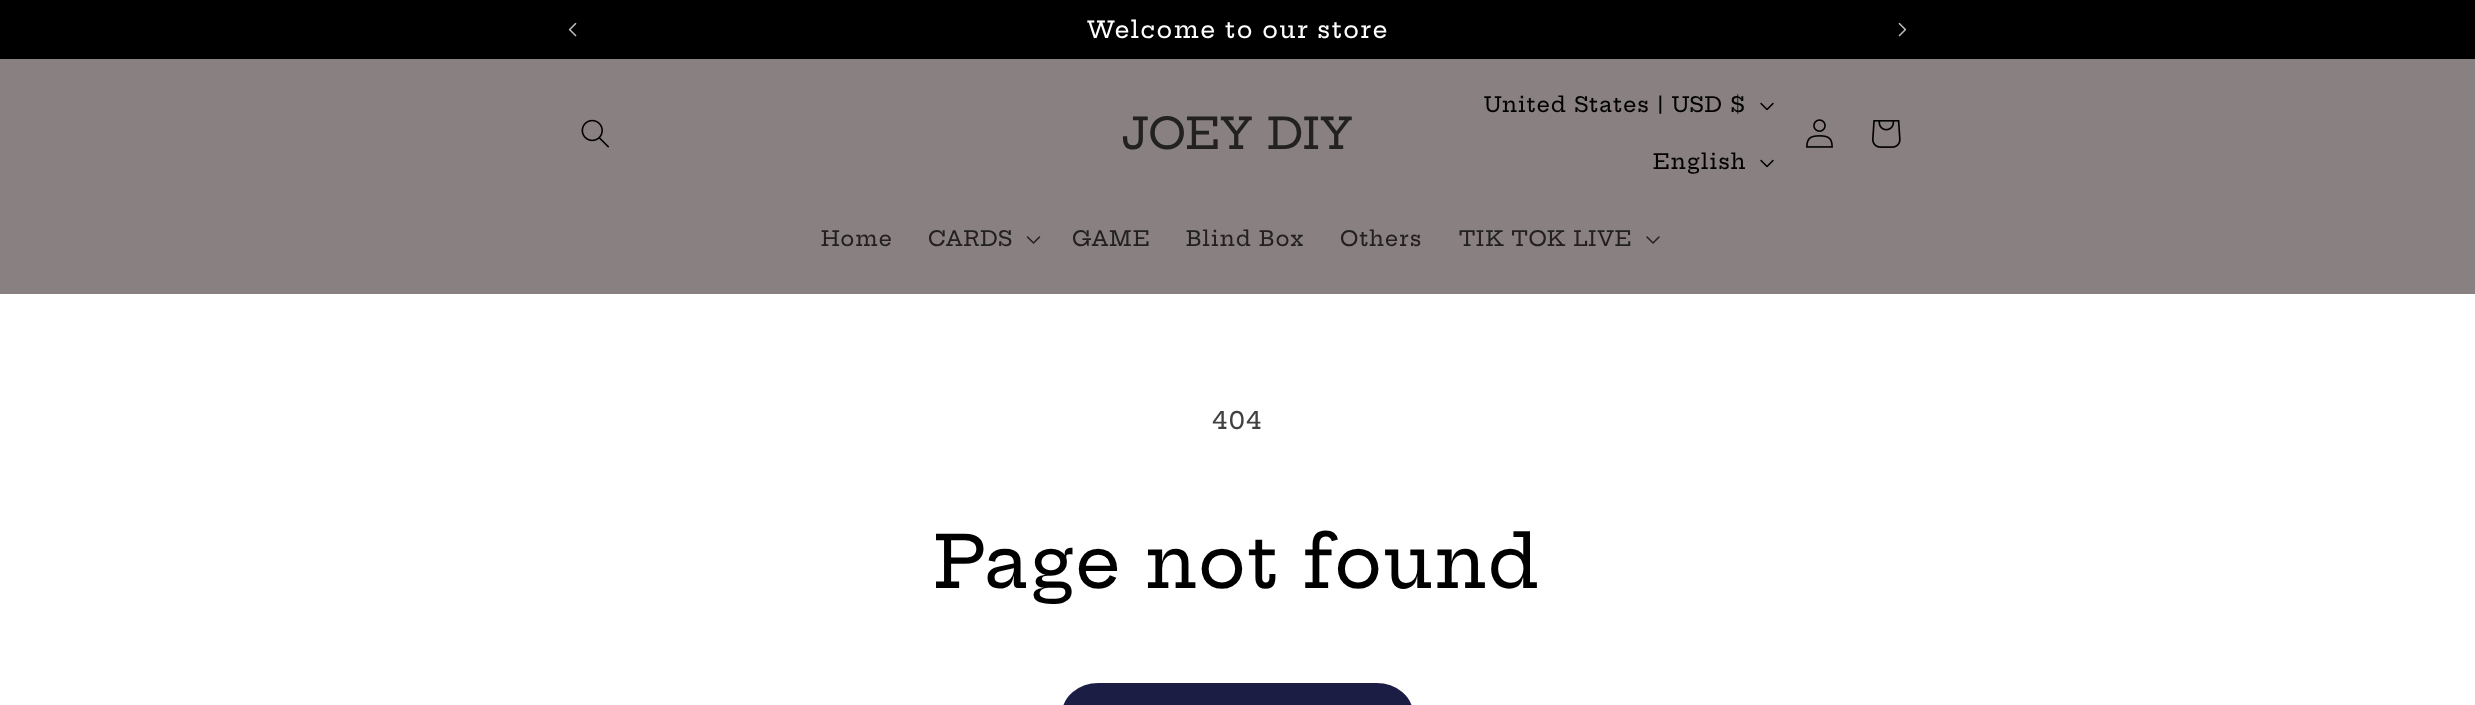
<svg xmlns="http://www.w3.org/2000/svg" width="2475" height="705">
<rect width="100%" height="100%" fill="#fff"/>
<rect width="2475" height="59" fill="#000"/>
<image x="569" y="22" width="8" height="15" href="media/1.png"/>
<text x="1087" y="38" style="font-family:Hepta Slab;font-size:23.4px;font-weight:500;letter-spacing:1.5px;fill:#fff">Welcome to our store</text>
<image x="1898" y="22" width="8" height="15" href="media/2.png"/>
<rect y="59" width="2475" height="235" fill="#898181"/>
<image x="581" y="119" width="28" height="29" href="media/3.png"/>
<text x="1122" y="149" style="font-family:Hepta Slab;font-size:43.25px;font-weight:500;letter-spacing:1.1px;fill:#222020">JOEY DIY</text>
<text x="1484" y="112" style="font-family:Hepta Slab;font-size:21px;font-weight:500;letter-spacing:0.9px;fill:#000">United States | USD $</text>
<image x="1760" y="102" width="14" height="9" href="media/4.png"/>
<text x="1653" y="169" style="font-family:Hepta Slab;font-size:21px;font-weight:500;letter-spacing:0.9px;fill:#000">English</text>
<image x="1760" y="159" width="14" height="9" href="media/4.png"/>
<image x="1806" y="119" width="27" height="29" href="media/5.png"/>
<image x="1872" y="120" width="29" height="28" href="media/6.png"/>
<text x="821" y="246" style="font-family:Hepta Slab;font-size:21px;font-weight:500;letter-spacing:0.9px;fill:#222020">Home</text>
<text x="928" y="246" style="font-family:Hepta Slab;font-size:21px;font-weight:500;letter-spacing:0.9px;fill:#222020">CARDS</text>
<image x="1026" y="236" width="15" height="8" href="media/7.png"/>
<text x="1072" y="246" style="font-family:Hepta Slab;font-size:21px;font-weight:500;letter-spacing:0.9px;fill:#222020">GAME</text>
<text x="1186" y="246" style="font-family:Hepta Slab;font-size:21px;font-weight:500;letter-spacing:0.9px;fill:#222020">Blind Box</text>
<text x="1340" y="246" style="font-family:Hepta Slab;font-size:21px;font-weight:500;letter-spacing:0.9px;fill:#222020">Others</text>
<text x="1459" y="246" style="font-family:Hepta Slab;font-size:21px;font-weight:500;letter-spacing:0.9px;fill:#222020">TIK TOK LIVE</text>
<image x="1646" y="236" width="14" height="8" href="media/8.png"/>
<text x="1212" y="429" style="font-family:Hepta Slab;font-size:24px;font-weight:500;letter-spacing:0.9px;fill:#404040">404</text>
<text x="934" y="588" style="font-family:Hepta Slab;font-size:72px;font-weight:500;letter-spacing:1.1px;fill:#000">Page not found</text>
<rect x="1063.5" y="684.5" width="348" height="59" rx="35" fill="#1c1d45" stroke="#1c1d45" stroke-width="3"/>
</svg>
